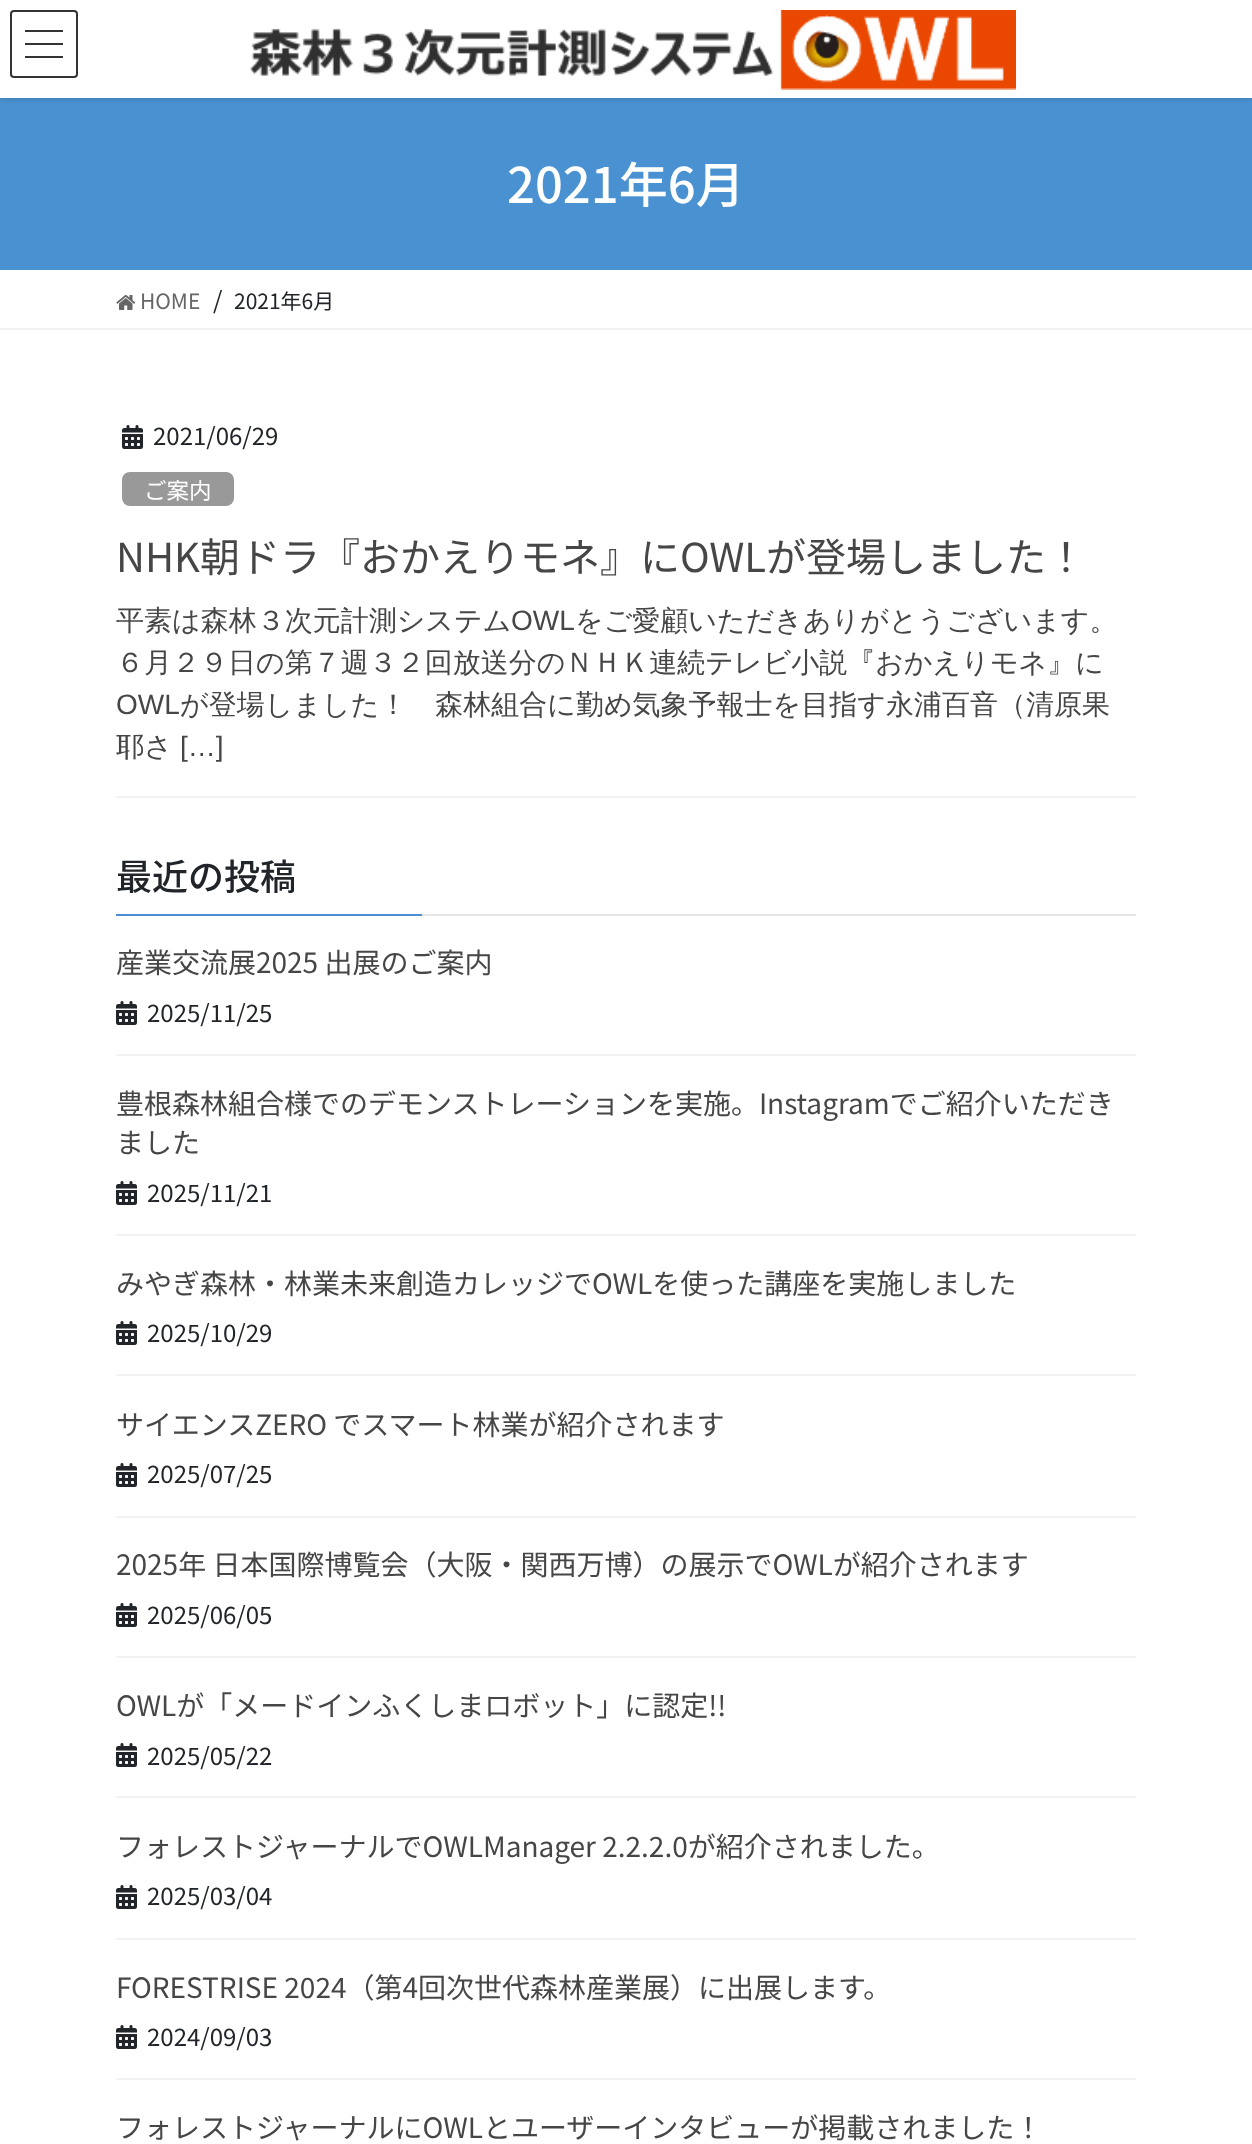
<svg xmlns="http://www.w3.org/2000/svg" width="1252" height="2144">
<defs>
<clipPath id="clip1"><rect x="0" y="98" width="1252" height="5"/></clipPath>
</defs>
<rect width="100%" height="100%" fill="#fff"/>
<rect y="98" width="1252" height="172" fill="#4991d1"/>
<g clip-path="url(#clip1)">
<rect y="2" width="1252" height="98" fill="#0000001a" filter="blur(3px)"/>
</g>
<image x="250" y="10" width="766" height="80" href="media/1.png"/>
<rect x="25" y="30" width="38" height="2" fill="#333"/>
<rect x="25" y="43" width="38" height="2" fill="#333"/>
<rect x="25" y="56" width="38" height="2" fill="#333"/>
<rect x="11" y="11" width="66" height="66" rx="3" fill="none" stroke="#333" stroke-width="2"/>
<text x="507" y="203" style="font-family:Noto Sans JP;font-size:49px;font-weight:500;fill:#fff">2021年6月</text>
<rect y="328" width="1252" height="2" fill="#f2f2f2"/>
<image x="116" y="295" width="20" height="15" href="media/2.png"/>
<text x="140" y="309" style="font-family:Noto Sans JP;font-size:21px;fill:#666">HOME</text>
<text x="213" y="309" style="font-family:Noto Sans JP;font-size:24px;fill:#212529">/</text>
<text x="234" y="309" style="font-family:Noto Sans JP;font-size:21px;fill:#212529">2021年6月</text>
<rect x="116" y="796" width="1020" height="2" fill="#f2f2f2"/>
<image x="122" y="425" width="21" height="24" href="media/3.png"/>
<text x="153" y="445" style="font-family:Noto Sans JP;font-size:24px;fill:#212529">2021/06/29</text>
<rect x="122" y="472" width="112" height="34" rx="8" fill="#999"/>
<text x="144" y="499" style="font-family:Noto Sans JP;font-size:22.5px;fill:#fff">ご案内</text>
<text x="116" y="572" style="font-family:Noto Sans JP;font-size:40px;fill:#464646">NHK朝ドラ『おかえりモネ』にOWLが登場しました！</text>
<text x="116" y="630" style="font-family:WenQuanYi Zen Hei;font-size:28px;font-weight:500;fill:#464646">平素は森林３次元計測システム</text>
<text x="511" y="630" style="font-family:Liberation Sans;font-size:28px;fill:#464646">OWL</text>
<text x="575" y="630" style="font-family:WenQuanYi Zen Hei;font-size:28px;font-weight:500;fill:#464646">をご愛顧いただきありがとうございます。</text>
<text x="116" y="672" style="font-family:WenQuanYi Zen Hei;font-size:28px;font-weight:500;fill:#464646">６月２９日の第７週３２回放送分のＮＨＫ連続テレビ小説『おかえりモネ』に</text>
<text x="116" y="714" style="font-family:Liberation Sans;font-size:28px;fill:#464646">OWL</text>
<text x="180" y="714" style="font-family:WenQuanYi Zen Hei;font-size:28px;font-weight:500;fill:#464646">が登場しました！　森林組合に勤め気象予報士を目指す永浦百音（清原果</text>
<text x="116" y="756" style="font-family:WenQuanYi Zen Hei;font-size:28px;font-weight:500;fill:#464646">耶さ</text>
<text x="180" y="756" style="font-family:Liberation Sans;font-size:28px;fill:#464646">[…]</text>
<rect x="422" y="914" width="714" height="2" fill="#e6e6e6"/>
<text x="116" y="890" style="font-family:Noto Sans JP;font-size:36px;font-weight:500;fill:#212529">最近の投稿</text>
<rect x="116" y="914" width="306" height="2" fill="#4991d1"/>
<rect x="116" y="1054" width="1020" height="2" fill="#f2f2f2"/>
<text x="116" y="973" style="font-family:Noto Sans JP;font-size:28px;fill:#464646">産業交流展2025 出展のご案内</text>
<image x="116" y="1001" width="21" height="24" href="media/3.png"/>
<text x="147" y="1022" style="font-family:Noto Sans JP;font-size:24px;fill:#212529">2025/11/25</text>
<rect x="116" y="1234" width="1020" height="2" fill="#f2f2f2"/>
<text x="116" y="1114" style="font-family:Noto Sans JP;font-size:28px;fill:#464646">豊根森林組合様でのデモンストレーションを実施。Instagramでご紹介いただき</text>
<text x="116" y="1153" style="font-family:Noto Sans JP;font-size:28px;fill:#464646">ました</text>
<image x="116" y="1181" width="21" height="24" href="media/3.png"/>
<text x="147" y="1202" style="font-family:Noto Sans JP;font-size:24px;fill:#212529">2025/11/21</text>
<rect x="116" y="1374" width="1020" height="2" fill="#f2f2f2"/>
<text x="116" y="1294" style="font-family:Noto Sans JP;font-size:28px;fill:#464646">みやぎ森林・林業未来創造カレッジでOWLを使った講座を実施しました</text>
<image x="116" y="1321" width="21" height="24" href="media/3.png"/>
<text x="147" y="1342" style="font-family:Noto Sans JP;font-size:24px;fill:#212529">2025/10/29</text>
<rect x="116" y="1516" width="1020" height="2" fill="#f2f2f2"/>
<text x="116" y="1435" style="font-family:Noto Sans JP;font-size:28px;fill:#464646">サイエンスZERO でスマート林業が紹介されます</text>
<image x="116" y="1463" width="21" height="24" href="media/3.png"/>
<text x="147" y="1483" style="font-family:Noto Sans JP;font-size:24px;fill:#212529">2025/07/25</text>
<rect x="116" y="1656" width="1020" height="2" fill="#f2f2f2"/>
<text x="116" y="1575" style="font-family:Noto Sans JP;font-size:28px;fill:#464646">2025年 日本国際博覧会（大阪・関西万博）の展示でOWLが紹介されます</text>
<image x="116" y="1603" width="21" height="24" href="media/3.png"/>
<text x="147" y="1624" style="font-family:Noto Sans JP;font-size:24px;fill:#212529">2025/06/05</text>
<rect x="116" y="1796" width="1020" height="2" fill="#f2f2f2"/>
<text x="116" y="1716" style="font-family:Noto Sans JP;font-size:28px;fill:#464646">OWLが「メードインふくしまロボット」に認定!!</text>
<image x="116" y="1743" width="21" height="24" href="media/3.png"/>
<text x="147" y="1765" style="font-family:Noto Sans JP;font-size:24px;fill:#212529">2025/05/22</text>
<rect x="116" y="1938" width="1020" height="2" fill="#f2f2f2"/>
<text x="116" y="1857" style="font-family:Noto Sans JP;font-size:28px;fill:#464646">フォレストジャーナルでOWLManager 2.2.2.0が紹介されました。</text>
<image x="116" y="1885" width="21" height="24" href="media/3.png"/>
<text x="147" y="1905" style="font-family:Noto Sans JP;font-size:24px;fill:#212529">2025/03/04</text>
<rect x="116" y="2078" width="1020" height="2" fill="#f2f2f2"/>
<text x="116" y="1998" style="font-family:Noto Sans JP;font-size:28px;fill:#464646">FORESTRISE 2024（第4回次世代森林産業展）に出展します。</text>
<image x="116" y="2025" width="21" height="24" href="media/3.png"/>
<text x="147" y="2046" style="font-family:Noto Sans JP;font-size:24px;fill:#212529">2024/09/03</text>
<text x="116" y="2138" style="font-family:Noto Sans JP;font-size:28px;fill:#464646">フォレストジャーナルにOWLとユーザーインタビューが掲載されました！</text>
</svg>
